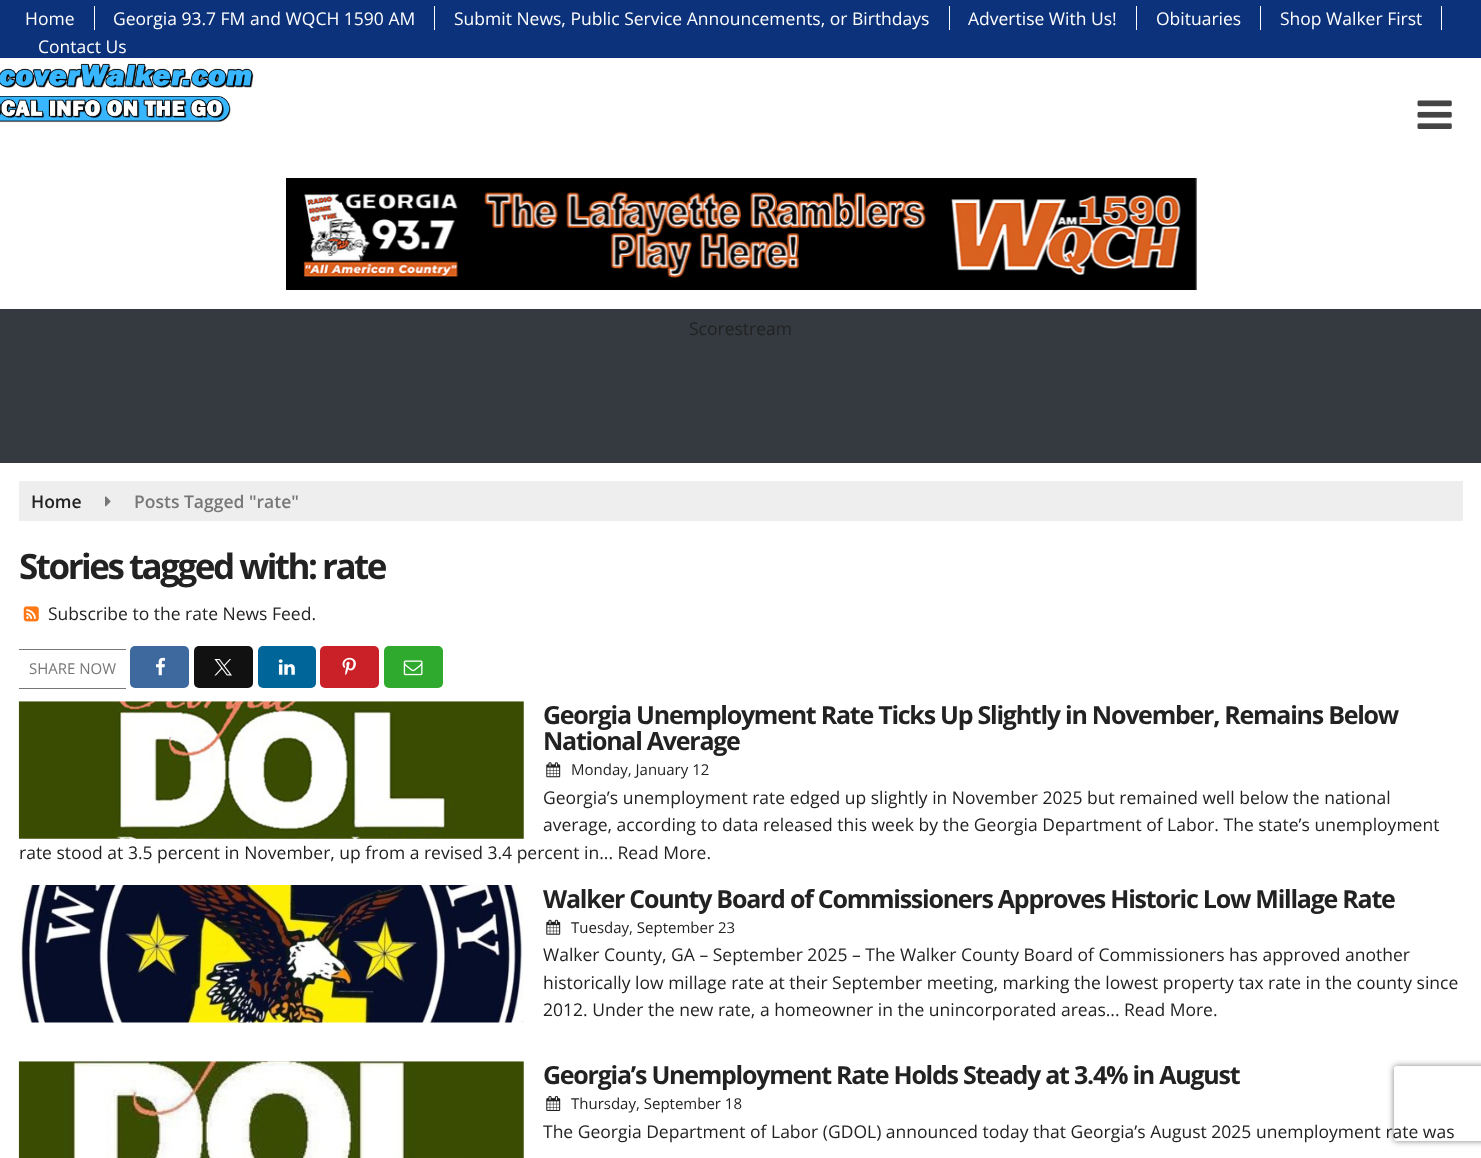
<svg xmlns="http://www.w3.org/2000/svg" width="1481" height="1158">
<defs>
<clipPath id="clip1"><path d="M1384 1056h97v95h-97zm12.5 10h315c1.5 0 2.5 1 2.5 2.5v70c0 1.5-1 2.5-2.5 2.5h-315c-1.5 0-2.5-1-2.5-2.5v-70c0-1.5 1-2.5 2.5-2.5z" clip-rule="evenodd"/></clipPath>
</defs>
<rect width="100%" height="100%" fill="#fff"/>
<rect width="1481" height="58" fill="#0b327a"/>
<text x="25" y="25" style="font-family:Open Sans;font-size:17.5px;fill:#fff">Home</text>
<rect x="94" y="6" width="1" height="24" fill="#fff"/>
<text x="113" y="25" style="font-family:Open Sans;font-size:17.5px;fill:#fff">Georgia 93.7 FM and WQCH 1590 AM</text>
<rect x="434" y="6" width="1" height="24" fill="#fff"/>
<text x="454" y="25" style="font-family:Open Sans;font-size:17.5px;fill:#fff">Submit News, Public Service Announcements, or Birthdays</text>
<rect x="949" y="6" width="1" height="24" fill="#fff"/>
<text x="968" y="25" style="font-family:Open Sans;font-size:17.5px;fill:#fff">Advertise With Us!</text>
<rect x="1136" y="6" width="1" height="24" fill="#fff"/>
<text x="1156" y="25" style="font-family:Open Sans;font-size:17.5px;fill:#fff">Obituaries</text>
<rect x="1260" y="6" width="1" height="24" fill="#fff"/>
<text x="1280" y="25" style="font-family:Open Sans;font-size:17.5px;fill:#fff">Shop Walker First</text>
<rect x="1441" y="6" width="1" height="24" fill="#fff"/>
<text x="38" y="53" style="font-family:Open Sans;font-size:17.5px;fill:#fff">Contact Us</text>
<image x="0" y="63" width="254" height="60" href="media/1.png"/>
<image x="286" y="178" width="911" height="112" href="media/2.png"/>
<image x="1417" y="100" width="35" height="29" href="media/3.png"/>
<rect y="309" width="1481" height="154" fill="#343a40"/>
<text x="689" y="335" style="font-family:Open Sans;font-size:17.5px;fill:#222">Scorestream</text>
<rect x="19" y="481" width="1444" height="40" fill="#eee"/>
<text x="31" y="508" style="font-family:Open Sans;font-size:17.5px;font-weight:600;fill:#222">Home</text>
<image x="105" y="496" width="6" height="11" href="media/4.png"/>
<text x="134" y="508" style="font-family:Open Sans;font-size:17.5px;font-weight:600;fill:#777">Posts Tagged "rate"</text>
<text x="19" y="579" style="font-family:Open Sans;font-size:35px;font-weight:bold;letter-spacing:-2.5px;fill:#222">Stories tagged with: rate</text>
<image x="23" y="606" width="16" height="16" href="media/5.png"/>
<text x="48" y="620" style="font-family:Open Sans;font-size:17.5px;fill:#222">Subscribe to the rate News Feed.</text>
<rect x="19" y="649" width="107" height="1" fill="#777"/>
<rect x="19" y="688" width="107" height="1" fill="#777"/>
<text x="29" y="674" style="font-family:Open Sans;font-size:15px;fill:#777">SHARE NOW</text>
<rect x="130" y="646" width="59" height="42" rx="5" fill="#3d699e"/>
<image x="156" y="657" width="10" height="19" href="media/6.png"/>
<rect x="194" y="646" width="59" height="42" rx="5" fill="#111"/>
<image x="214" y="659" width="18" height="17" href="media/7.png"/>
<rect x="258" y="646" width="58" height="42" rx="5" fill="#069"/>
<image x="278" y="659" width="17" height="16" href="media/8.png"/>
<rect x="320" y="646" width="59" height="42" rx="5" fill="#ca2027"/>
<image x="342" y="657" width="14" height="19" href="media/9.png"/>
<rect x="384" y="646" width="59" height="42" rx="5" fill="#2fa92e"/>
<image x="403" y="660" width="20" height="16" href="media/10.png"/>
<image x="18" y="701" width="506" height="138" href="media/11.png"/>
<text x="543" y="724" style="font-family:Open Sans;font-size:25px;font-weight:bold;letter-spacing:-1.25px;fill:#222">Georgia Unemployment Rate Ticks Up Slightly in November, Remains Below</text>
<text x="543" y="750" style="font-family:Open Sans;font-size:25px;font-weight:bold;letter-spacing:-1.25px;fill:#222">National Average</text>
<image x="546" y="762" width="15" height="16" href="media/12.png"/>
<text x="571" y="775" style="font-family:Open Sans;font-size:15px;fill:#222">Monday, January 12</text>
<text x="543" y="804" style="font-family:Open Sans;font-size:17.5px;fill:#222">Georgia’s unemployment rate edged up slightly in November 2025 but remained well below the national</text>
<text x="543" y="831" style="font-family:Open Sans;font-size:17.5px;fill:#222">average, according to data released this week by the Georgia Department of Labor. The state’s unemployment</text>
<text x="19" y="859" style="font-family:Open Sans;font-size:17.5px;fill:#222">rate stood at 3.5 percent in November, up from a revised 3.4 percent in... Read More.</text>
<image x="19" y="885" width="505" height="138" href="media/13.png"/>
<text x="543" y="908" style="font-family:Open Sans;font-size:25px;font-weight:bold;letter-spacing:-1.25px;fill:#222">Walker County Board of Commissioners Approves Historic Low Millage Rate</text>
<image x="546" y="919" width="15" height="16" href="media/14.png"/>
<text x="571" y="933" style="font-family:Open Sans;font-size:15px;fill:#222">Tuesday, September 23</text>
<text x="543" y="961" style="font-family:Open Sans;font-size:17.5px;fill:#222">Walker County, GA – September 2025 – The Walker County Board of Commissioners has approved another</text>
<text x="543" y="989" style="font-family:Open Sans;font-size:17.5px;fill:#222">historically low millage rate at their September meeting, marking the lowest property tax rate in the county since</text>
<text x="543" y="1016" style="font-family:Open Sans;font-size:17.5px;fill:#222">2012. Under the new rate, a homeowner in the unincorporated areas... Read More.</text>
<image x="18" y="1061" width="506" height="97" href="media/15.png"/>
<text x="543" y="1084" style="font-family:Open Sans;font-size:25px;font-weight:bold;letter-spacing:-1.25px;fill:#222">Georgia’s Unemployment Rate Holds Steady at 3.4% in August</text>
<image x="546" y="1096" width="15" height="15" href="media/16.png"/>
<text x="571" y="1109" style="font-family:Open Sans;font-size:15px;fill:#222">Thursday, September 18</text>
<text x="543" y="1138" style="font-family:Open Sans;font-size:17.5px;fill:#222">The Georgia Department of Labor (GDOL) announced today that Georgia’s August 2025 unemployment rate was</text>
<g clip-path="url(#clip1)">
<rect x="1394" y="1066" width="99" height="75" rx="2.5" fill="#808080" filter="blur(3px)"/>
</g>
</svg>
